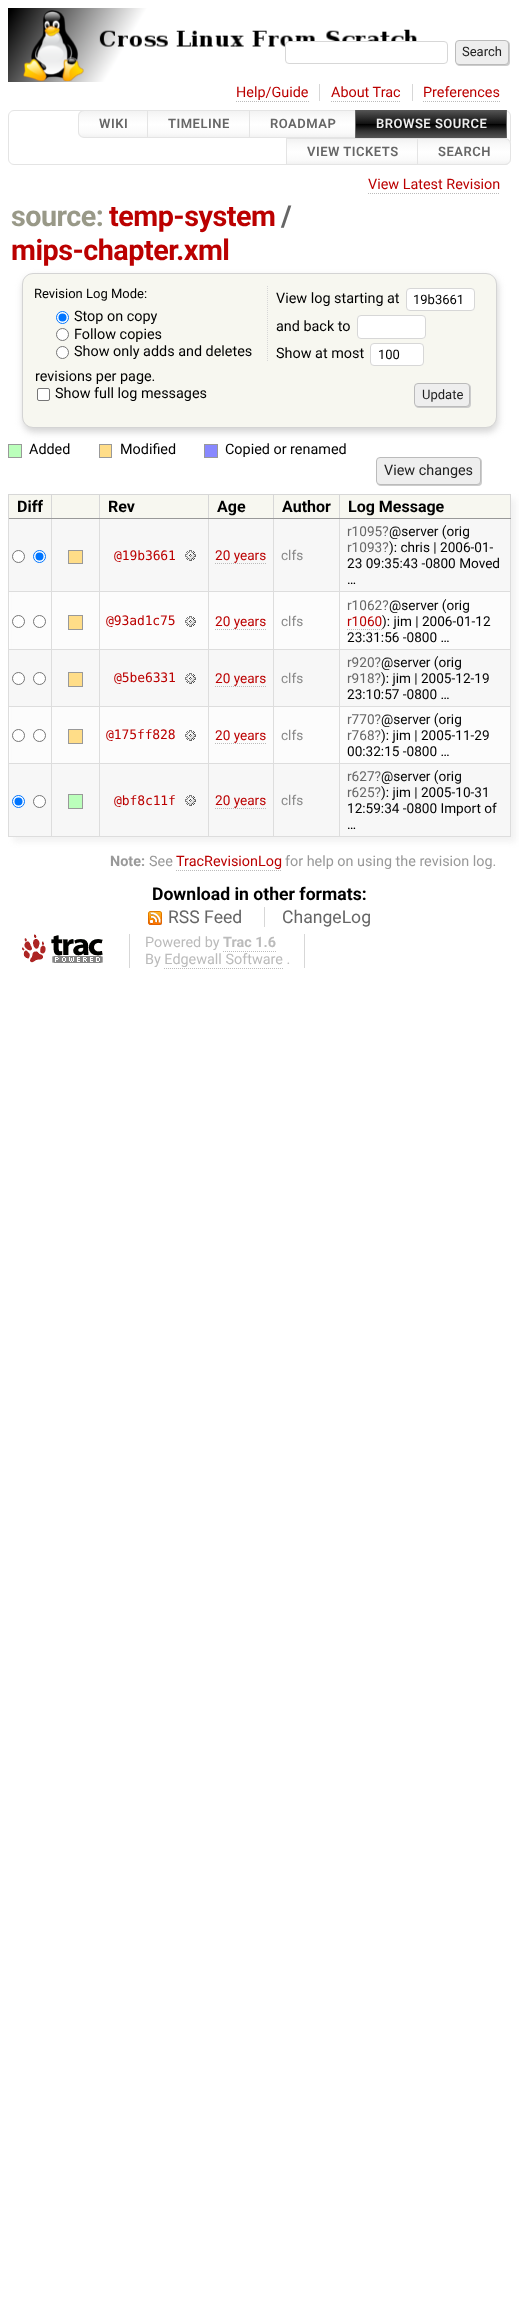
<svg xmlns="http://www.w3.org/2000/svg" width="519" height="2298">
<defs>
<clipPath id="clip1"><path d="M84 110h64v28h-64c-3.5 0-6-2.5-6-6v-16c0-3.5 2.5-6 6-6z"/></clipPath>
<linearGradient id="g1" gradientUnits="userSpaceOnUse" x1="113" y1="111" x2="113" y2="137"><stop offset="0" stop-color="#f2f2f2"/><stop offset="0.25" stop-color="#fafafa"/><stop offset="0.49" stop-color="#fefefe"/><stop offset="0.51" stop-color="#fff"/><stop offset="0.85" stop-color="#fafafa"/><stop offset="1" stop-color="#f2f2f2"/></linearGradient>
<linearGradient id="g2" gradientUnits="userSpaceOnUse" x1="199" y1="111" x2="199" y2="137"><stop offset="0" stop-color="#f2f2f2"/><stop offset="0.25" stop-color="#fafafa"/><stop offset="0.49" stop-color="#fefefe"/><stop offset="0.51" stop-color="#fff"/><stop offset="0.85" stop-color="#fafafa"/><stop offset="1" stop-color="#f2f2f2"/></linearGradient>
<linearGradient id="g3" gradientUnits="userSpaceOnUse" x1="303" y1="111" x2="303" y2="137"><stop offset="0" stop-color="#f2f2f2"/><stop offset="0.25" stop-color="#fafafa"/><stop offset="0.49" stop-color="#fefefe"/><stop offset="0.51" stop-color="#fff"/><stop offset="0.85" stop-color="#fafafa"/><stop offset="1" stop-color="#f2f2f2"/></linearGradient>
<linearGradient id="g4" gradientUnits="userSpaceOnUse" x1="431" y1="110" x2="431" y2="138"><stop offset="0" stop-color="#555"/><stop offset="0.25" stop-color="#333"/><stop offset="0.49" stop-color="#111"/><stop offset="0.51" stop-color="#000"/><stop offset="0.75" stop-color="#333"/><stop offset="1" stop-color="#555"/></linearGradient>
<linearGradient id="g5" gradientUnits="userSpaceOnUse" x1="352" y1="139" x2="352" y2="164"><stop offset="0" stop-color="#f2f2f2"/><stop offset="0.25" stop-color="#fafafa"/><stop offset="0.49" stop-color="#fefefe"/><stop offset="0.51" stop-color="#fff"/><stop offset="0.85" stop-color="#fafafa"/><stop offset="1" stop-color="#f2f2f2"/></linearGradient>
<clipPath id="clip2"><path d="M417 138h88c3.5 0 6 2.5 6 6v15c0 3.5-2.5 6-6 6h-88z"/></clipPath>
<linearGradient id="g6" gradientUnits="userSpaceOnUse" x1="464" y1="139" x2="464" y2="164"><stop offset="0" stop-color="#f2f2f2"/><stop offset="0.25" stop-color="#fafafa"/><stop offset="0.49" stop-color="#fefefe"/><stop offset="0.51" stop-color="#fff"/><stop offset="0.85" stop-color="#fafafa"/><stop offset="1" stop-color="#f2f2f2"/></linearGradient>
</defs>
<rect width="100%" height="100%" fill="#fff"/>
<image x="8" y="8" width="410" height="74" href="media/1.png"/>
<rect x="285.5" y="41.5" width="162" height="22" rx="3.5" fill="#fff" stroke="#d7d7d7"/>
<rect x="456" y="41" width="54" height="25" rx="4" fill="#ccc" filter="blur(0.5px)"/>
<rect x="455.5" y="40.5" width="53" height="24" rx="3.5" fill="#eee" stroke="#bbb"/>
<text x="462" y="56" style="font-family:Roboto;font-size:13px;fill:#222">Search</text>
<rect x="319" y="84" width="1" height="17" fill="#d7d7d7"/>
<text x="236" y="97" style="font-family:Roboto;font-size:14.4px;fill:#b00">Help/Guide</text>
<path d="M236 101.5h73" fill="none" stroke="#bbb" stroke-dasharray="1 1"/>
<rect x="412" y="84" width="1" height="17" fill="#d7d7d7"/>
<text x="331" y="97" style="font-family:Roboto;font-size:14.4px;fill:#b00">About Trac</text>
<path d="M331 101.5h70" fill="none" stroke="#bbb" stroke-dasharray="1 1"/>
<text x="423" y="97" style="font-family:Roboto;font-size:14.4px;fill:#b00">Preferences</text>
<path d="M423 101.5h77" fill="none" stroke="#bbb" stroke-dasharray="1 1"/>
<rect x="8.5" y="110.5" width="502" height="54" rx="5.5" fill="none" stroke="#e4e4e4"/>
<g clip-path="url(#clip1)">
<rect x="78" y="111" width="69" height="26" fill="url(#g1)"/>
</g>
<path d="M84 110.5h63.5v27h-63.5c-3 0-5.5-2.5-5.5-5.5v-16c0-3 2.5-5.5 5.5-5.5z" fill="none" stroke="#e4e4e4"/>
<text x="99" y="128" style="font-family:Roboto;font-size:13px;font-weight:600;letter-spacing:0.5px;fill:#666">WIKI</text>
<rect x="148" y="111" width="101" height="26" fill="url(#g2)"/>
<rect x="147.5" y="110.5" width="102" height="27" fill="none" stroke="#e4e4e4"/>
<text x="168" y="128" style="font-family:Roboto;font-size:13px;font-weight:600;letter-spacing:0.5px;fill:#666">TIMELINE</text>
<rect x="250" y="111" width="105" height="26" fill="url(#g3)"/>
<rect x="249.5" y="110.5" width="106" height="27" fill="none" stroke="#e4e4e4"/>
<text x="270" y="128" style="font-family:Roboto;font-size:13px;font-weight:600;letter-spacing:0.5px;fill:#666">ROADMAP</text>
<rect x="355.5" y="110.5" width="151" height="27" fill="none" stroke="#666"/>
<rect x="356" y="110" width="150" height="28" fill="url(#g4)"/>
<text x="376" y="128" style="font-family:Roboto;font-size:13px;font-weight:600;letter-spacing:0.5px;fill:#eee">BROWSE SOURCE</text>
<rect x="287" y="139" width="130" height="25" fill="url(#g5)"/>
<rect x="286.5" y="138.5" width="131" height="26" fill="none" stroke="#e4e4e4"/>
<text x="307" y="156" style="font-family:Roboto;font-size:13px;font-weight:600;letter-spacing:0.5px;fill:#666">VIEW TICKETS</text>
<g clip-path="url(#clip2)">
<rect x="418" y="139" width="93" height="25" fill="url(#g6)"/>
</g>
<path d="M417.5 138.5h87.5c3 0 5.5 2.5 5.5 5.5v15c0 3-2.5 5.5-5.5 5.5h-87.5z" fill="none" stroke="#e4e4e4"/>
<text x="438" y="156" style="font-family:Roboto;font-size:13px;font-weight:600;letter-spacing:0.5px;fill:#666">SEARCH</text>
<text x="368" y="189" style="font-family:Roboto;font-size:14.4px;fill:#b00">View Latest Revision</text>
<path d="M368 193.5h132" fill="none" stroke="#bbb" stroke-dasharray="1 1"/>
<text x="11" y="226" style="font-family:Roboto;font-size:28.75px;font-weight:bold;letter-spacing:-0.5px;fill:#998">source:</text>
<text x="109" y="226" style="font-family:Roboto;font-size:28.75px;font-weight:bold;letter-spacing:-0.5px;fill:#b00">temp-system</text>
<text x="281" y="226" style="font-family:Roboto;font-size:28.75px;font-weight:bold;letter-spacing:-0.5px;fill:#666">/</text>
<text x="11" y="260" style="font-family:Roboto;font-size:28.75px;font-weight:bold;letter-spacing:-0.5px;fill:#b00">mips-chapter.xml</text>
<rect x="23" y="277" width="475" height="155" rx="11" fill="#d4d4d4" filter="blur(3.5px)"/>
<rect x="22.5" y="273.5" width="474" height="154" rx="10.5" fill="#f7f7f0" stroke="#d4d4d4"/>
<path d="M267.5 286v75" fill="none" stroke="#d7d7d7" stroke-dasharray="1 1"/>
<text x="34" y="298" style="font-family:Roboto;font-size:13px;fill:#000">Revision Log Mode:</text>
<circle cx="62.5" cy="317.5" r="6" fill="#fff" stroke="#0075ff"/>
<circle cx="62.5" cy="317.5" r="4" fill="#0075ff"/>
<text x="74" y="321" style="font-family:Roboto;font-size:14.4px;fill:#000">Stop on copy</text>
<circle cx="62.5" cy="334.5" r="6" fill="#fff" stroke="#767676"/>
<text x="74" y="339" style="font-family:Roboto;font-size:14.4px;fill:#000">Follow copies</text>
<circle cx="62.5" cy="352.5" r="6" fill="#fff" stroke="#767676"/>
<text x="74" y="356" style="font-family:Roboto;font-size:14.4px;fill:#000">Show only adds and deletes</text>
<text x="276" y="303" style="font-family:Roboto;font-size:14.4px;fill:#000">View log starting at</text>
<rect x="406.5" y="288.5" width="68" height="22" rx="3.5" fill="#fff" stroke="#d7d7d7"/>
<text x="413" y="304" style="font-family:Roboto;font-size:13px;fill:#000">19b3661</text>
<text x="276" y="331" style="font-family:Roboto;font-size:14.4px;fill:#000">and back to</text>
<rect x="357.5" y="315.5" width="68" height="23" rx="3.5" fill="#fff" stroke="#d7d7d7"/>
<text x="276" y="358" style="font-family:Roboto;font-size:14.4px;fill:#000">Show at most</text>
<rect x="370.5" y="343.5" width="53" height="22" rx="3.5" fill="#fff" stroke="#d7d7d7"/>
<text x="378" y="359" style="font-family:Roboto;font-size:13px;fill:#000">100</text>
<text x="35" y="381" style="font-family:Roboto;font-size:14.4px;fill:#000">revisions per page.</text>
<rect x="37.5" y="388.5" width="12" height="12" rx="1.5" fill="#fff" stroke="#767676"/>
<text x="55" y="398" style="font-family:Roboto;font-size:14.4px;fill:#000">Show full log messages</text>
<rect x="415" y="384" width="56" height="24" rx="4" fill="#ccc" filter="blur(0.5px)"/>
<rect x="414.5" y="383.5" width="55" height="23" rx="3.5" fill="#eee" stroke="#bbb"/>
<text x="422" y="399" style="font-family:Roboto;font-size:13px;fill:#222">Update</text>
<rect x="8.5" y="444.5" width="13" height="13" fill="#bfb" stroke="#999"/>
<text x="29" y="454" style="font-family:Roboto;font-size:14.4px;fill:#000">Added</text>
<rect x="99.5" y="444.5" width="12" height="13" fill="#fd8" stroke="#999"/>
<text x="120" y="454" style="font-family:Roboto;font-size:14.4px;fill:#000">Modified</text>
<rect x="204.5" y="444.5" width="13" height="13" fill="#88f" stroke="#999"/>
<text x="225" y="454" style="font-family:Roboto;font-size:14.4px;fill:#000">Copied or renamed</text>
<rect x="377" y="458" width="105" height="28" rx="4" fill="#ccc" filter="blur(0.5px)"/>
<rect x="376.5" y="457.5" width="104" height="27" rx="3.5" fill="#eee" stroke="#bbb"/>
<text x="384" y="475" style="font-family:Roboto;font-size:14.4px;fill:#222">View changes</text>
<rect x="13" y="499" width="503" height="343" fill="#f2f2f2" filter="blur(3px)"/>
<rect x="9" y="495" width="501" height="23" fill="#f7f7f0"/>
<rect x="339" y="494" width="172" height="1" fill="#d7d7d7"/>
<rect x="8" y="591" width="503" height="1" fill="#ddd"/>
<rect x="8" y="649" width="503" height="1" fill="#ddd"/>
<rect x="8" y="706" width="503" height="1" fill="#ddd"/>
<rect x="8" y="763" width="503" height="1" fill="#ddd"/>
<rect x="510" y="518" width="1" height="319" fill="#ddd"/>
<rect x="510" y="494" width="1" height="25" fill="#d7d7d7"/>
<rect x="9" y="519" width="501" height="72" fill="#f7f7f7"/>
<rect x="12" y="592" width="498" height="57" fill="#fcfcfc"/>
<rect x="9" y="650" width="501" height="56" fill="#f7f7f7"/>
<rect x="12" y="707" width="498" height="56" fill="#fcfcfc"/>
<rect x="9" y="764" width="501" height="72" fill="#f7f7f7"/>
<rect x="339" y="836" width="172" height="1" fill="#ddd"/>
<rect x="339" y="518" width="1" height="319" fill="#ddd"/>
<rect x="339" y="518" width="172" height="1" fill="#999"/>
<rect x="339" y="494" width="1" height="25" fill="#d7d7d7"/>
<rect x="273" y="494" width="67" height="1" fill="#d7d7d7"/>
<rect x="273" y="836" width="67" height="1" fill="#ddd"/>
<rect x="273" y="518" width="1" height="319" fill="#ddd"/>
<rect x="273" y="518" width="67" height="1" fill="#999"/>
<rect x="273" y="494" width="1" height="25" fill="#d7d7d7"/>
<rect x="208" y="494" width="66" height="1" fill="#d7d7d7"/>
<rect x="208" y="836" width="66" height="1" fill="#ddd"/>
<rect x="208" y="518" width="1" height="319" fill="#ddd"/>
<rect x="208" y="518" width="66" height="1" fill="#999"/>
<rect x="208" y="494" width="1" height="25" fill="#d7d7d7"/>
<rect x="99" y="494" width="110" height="1" fill="#d7d7d7"/>
<rect x="99" y="836" width="110" height="1" fill="#ddd"/>
<rect x="99" y="518" width="1" height="319" fill="#ddd"/>
<rect x="99" y="518" width="110" height="1" fill="#999"/>
<rect x="99" y="494" width="1" height="25" fill="#d7d7d7"/>
<rect x="51" y="494" width="49" height="1" fill="#d7d7d7"/>
<rect x="51" y="836" width="49" height="1" fill="#ddd"/>
<rect x="51" y="518" width="1" height="319" fill="#ddd"/>
<rect x="51" y="518" width="49" height="1" fill="#999"/>
<rect x="51" y="494" width="1" height="25" fill="#d7d7d7"/>
<rect x="8" y="494" width="44" height="1" fill="#d7d7d7"/>
<rect x="8" y="836" width="44" height="1" fill="#ddd"/>
<rect x="8" y="518" width="1" height="319" fill="#ddd"/>
<rect x="8" y="518" width="44" height="1" fill="#999"/>
<rect x="8" y="494" width="1" height="25" fill="#d7d7d7"/>
<text x="17" y="512" style="font-family:Roboto;font-size:16px;font-weight:bold;fill:#000">Diff</text>
<text x="108" y="512" style="font-family:Roboto;font-size:16px;font-weight:bold;fill:#000">Rev</text>
<text x="217" y="512" style="font-family:Roboto;font-size:16px;font-weight:bold;fill:#000">Age</text>
<text x="282" y="512" style="font-family:Roboto;font-size:16px;font-weight:bold;fill:#000">Author</text>
<text x="348" y="512" style="font-family:Roboto;font-size:16px;font-weight:bold;fill:#000">Log Message</text>
<circle cx="18.5" cy="556.5" r="6" fill="#fff" stroke="#767676"/>
<circle cx="39.5" cy="556.5" r="6" fill="#fff" stroke="#0075ff"/>
<circle cx="39.5" cy="556.5" r="4" fill="#0075ff"/>
<rect x="68.5" y="550.5" width="14" height="13" fill="#fd8" stroke="#999"/>
<text x="114" y="560" style="font-family:DejaVu Sans Mono;font-size:13px;letter-spacing:-0.1px;fill:#b00">@19b3661</text>
<image x="185" y="550" width="11" height="11" href="media/2.png"/>
<text x="215" y="560" style="font-family:Roboto;font-size:13.6px;fill:#b00">20 years</text>
<path d="M215 563.5h52" fill="none" stroke="#bbb" stroke-dasharray="1 1"/>
<text x="281" y="560" style="font-family:Roboto;font-size:13.6px;fill:#888">clfs</text>
<text x="347" y="536" style="font-family:Roboto;font-size:13.6px;fill:#666">r1095?</text>
<text x="389" y="536" style="font-family:Roboto;font-size:13.6px;fill:#000">@server (orig</text>
<text x="347" y="552" style="font-family:Roboto;font-size:13.6px;fill:#666">r1093?</text>
<text x="389" y="552" style="font-family:Roboto;font-size:13.6px;fill:#000">): chris | 2006-01-</text>
<text x="347" y="568" style="font-family:Roboto;font-size:13.6px;fill:#000">23 09:35:43 -0800 Moved</text>
<text x="347" y="584" style="font-family:Roboto;font-size:13.6px;fill:#000">…</text>
<circle cx="18.5" cy="621.5" r="6" fill="#fff" stroke="#767676"/>
<circle cx="39.5" cy="621.5" r="6" fill="#fff" stroke="#767676"/>
<rect x="68.5" y="615.5" width="14" height="14" fill="#fd8" stroke="#999"/>
<text x="106" y="625" style="font-family:DejaVu Sans Mono;font-size:13px;letter-spacing:-0.1px;fill:#b00">@93ad1c75</text>
<image x="185" y="616" width="11" height="11" href="media/3.png"/>
<text x="215" y="626" style="font-family:Roboto;font-size:13.6px;fill:#b00">20 years</text>
<path d="M215 629.5h52" fill="none" stroke="#bbb" stroke-dasharray="1 1"/>
<text x="281" y="626" style="font-family:Roboto;font-size:13.6px;fill:#888">clfs</text>
<text x="347" y="610" style="font-family:Roboto;font-size:13.6px;fill:#666">r1062?</text>
<text x="389" y="610" style="font-family:Roboto;font-size:13.6px;fill:#000">@server (orig</text>
<text x="347" y="626" style="font-family:Roboto;font-size:13.6px;fill:#b00">r1060</text>
<path d="M347 629.5h35" fill="none" stroke="#bbb" stroke-dasharray="1 1"/>
<text x="382" y="626" style="font-family:Roboto;font-size:13.6px;fill:#000">): jim | 2006-01-12</text>
<text x="347" y="642" style="font-family:Roboto;font-size:13.6px;fill:#000">23:31:56 -0800 …</text>
<circle cx="18.5" cy="678.5" r="6" fill="#fff" stroke="#767676"/>
<circle cx="39.5" cy="678.5" r="6" fill="#fff" stroke="#767676"/>
<rect x="68.5" y="672.5" width="14" height="14" fill="#fd8" stroke="#999"/>
<text x="114" y="682" style="font-family:DejaVu Sans Mono;font-size:13px;letter-spacing:-0.1px;fill:#b00">@5be6331</text>
<image x="185" y="673" width="11" height="11" href="media/2.png"/>
<text x="215" y="683" style="font-family:Roboto;font-size:13.6px;fill:#b00">20 years</text>
<path d="M215 686.5h52" fill="none" stroke="#bbb" stroke-dasharray="1 1"/>
<text x="281" y="683" style="font-family:Roboto;font-size:13.6px;fill:#888">clfs</text>
<text x="347" y="667" style="font-family:Roboto;font-size:13.6px;fill:#666">r920?</text>
<text x="381" y="667" style="font-family:Roboto;font-size:13.6px;fill:#000">@server (orig</text>
<text x="347" y="683" style="font-family:Roboto;font-size:13.6px;fill:#666">r918?</text>
<text x="381" y="683" style="font-family:Roboto;font-size:13.6px;fill:#000">): jim | 2005-12-19</text>
<text x="347" y="699" style="font-family:Roboto;font-size:13.6px;fill:#000">23:10:57 -0800 …</text>
<circle cx="18.5" cy="735.5" r="6" fill="#fff" stroke="#767676"/>
<circle cx="39.5" cy="735.5" r="6" fill="#fff" stroke="#767676"/>
<rect x="68.5" y="729.5" width="14" height="14" fill="#fd8" stroke="#999"/>
<text x="106" y="739" style="font-family:DejaVu Sans Mono;font-size:13px;letter-spacing:-0.1px;fill:#b00">@175ff828</text>
<image x="185" y="730" width="11" height="11" href="media/3.png"/>
<text x="215" y="740" style="font-family:Roboto;font-size:13.6px;fill:#b00">20 years</text>
<path d="M215 743.5h52" fill="none" stroke="#bbb" stroke-dasharray="1 1"/>
<text x="281" y="740" style="font-family:Roboto;font-size:13.6px;fill:#888">clfs</text>
<text x="347" y="724" style="font-family:Roboto;font-size:13.6px;fill:#666">r770?</text>
<text x="381" y="724" style="font-family:Roboto;font-size:13.6px;fill:#000">@server (orig</text>
<text x="347" y="740" style="font-family:Roboto;font-size:13.6px;fill:#666">r768?</text>
<text x="381" y="740" style="font-family:Roboto;font-size:13.6px;fill:#000">): jim | 2005-11-29</text>
<text x="347" y="756" style="font-family:Roboto;font-size:13.6px;fill:#000">00:32:15 -0800 …</text>
<circle cx="18.5" cy="801.5" r="6" fill="#fff" stroke="#0075ff"/>
<circle cx="18.5" cy="801.5" r="4" fill="#0075ff"/>
<circle cx="39.5" cy="801.5" r="6" fill="#fff" stroke="#767676"/>
<rect x="68.5" y="794.5" width="14" height="14" fill="#bfb" stroke="#999"/>
<text x="114" y="805" style="font-family:DejaVu Sans Mono;font-size:13px;letter-spacing:-0.1px;fill:#b00">@bf8c11f</text>
<image x="185" y="795" width="11" height="11" href="media/2.png"/>
<text x="215" y="805" style="font-family:Roboto;font-size:13.6px;fill:#b00">20 years</text>
<path d="M215 808.5h52" fill="none" stroke="#bbb" stroke-dasharray="1 1"/>
<text x="281" y="805" style="font-family:Roboto;font-size:13.6px;fill:#888">clfs</text>
<text x="347" y="781" style="font-family:Roboto;font-size:13.6px;fill:#666">r627?</text>
<text x="381" y="781" style="font-family:Roboto;font-size:13.6px;fill:#000">@server (orig</text>
<text x="347" y="797" style="font-family:Roboto;font-size:13.6px;fill:#666">r625?</text>
<text x="381" y="797" style="font-family:Roboto;font-size:13.6px;fill:#000">): jim | 2005-10-31</text>
<text x="347" y="813" style="font-family:Roboto;font-size:13.6px;fill:#000">12:59:34 -0800 Import of</text>
<text x="347" y="829" style="font-family:Roboto;font-size:13.6px;fill:#000">…</text>
<text x="110" y="866" style="font-family:Roboto;font-size:14.4px;font-weight:bold;fill:#999">Note:</text>
<text x="149" y="866" style="font-family:Roboto;font-size:14.4px;fill:#999">See</text>
<text x="176" y="866" style="font-family:Roboto;font-size:14.4px;fill:#b00">TracRevisionLog</text>
<path d="M176 870.5h106" fill="none" stroke="#bbb" stroke-dasharray="1 1"/>
<text x="285" y="866" style="font-family:Roboto;font-size:14.4px;fill:#999">for help on using the revision log.</text>
<text x="152" y="900" style="font-family:Roboto;font-size:17.6px;font-weight:bold;fill:#000">Download in other formats:</text>
<image x="148" y="911" width="14" height="14" href="media/4.png"/>
<text x="168" y="923" style="font-family:Roboto;font-size:17.6px;fill:#666">RSS Feed</text>
<rect x="264" y="907" width="1" height="20" fill="#d7d7d7"/>
<text x="282" y="923" style="font-family:Roboto;font-size:17.6px;fill:#666">ChangeLog</text>
<image x="22" y="934" width="81" height="29" href="media/5.png"/>
<rect x="304" y="934" width="1" height="34" fill="#d7d7d7"/>
<rect x="129" y="934" width="1" height="34" fill="#d7d7d7"/>
<text x="145" y="947" style="font-family:Roboto;font-size:14.4px;fill:#bbb">Powered by</text>
<text x="223" y="947" style="font-family:Roboto;font-size:14.4px;font-weight:bold;fill:#bbb">Trac 1.6</text>
<path d="M223 951.5h53" fill="none" stroke="#bbb" stroke-dasharray="1 1"/>
<text x="145" y="964" style="font-family:Roboto;font-size:14.4px;fill:#bbb">By Edgewall Software .</text>
<path d="M164 968.5h119" fill="none" stroke="#bbb" stroke-dasharray="1 1"/>
</svg>
